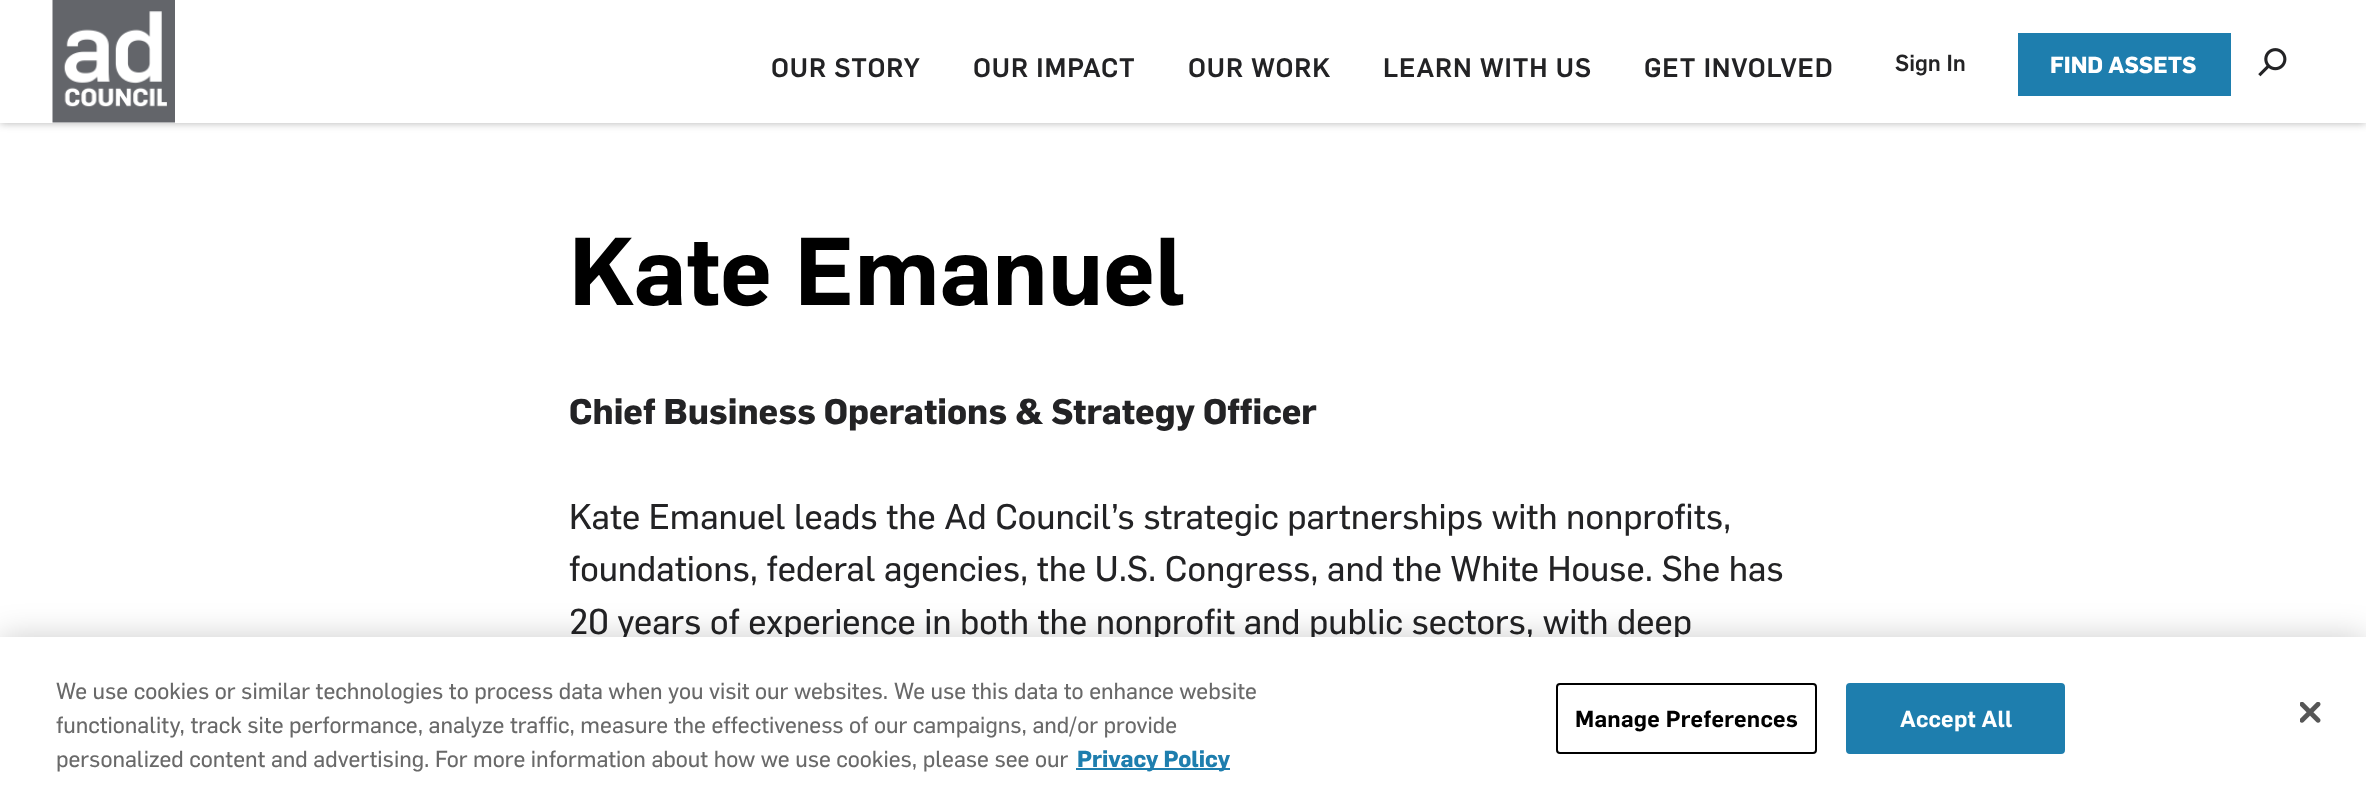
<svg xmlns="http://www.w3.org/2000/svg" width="2366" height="792">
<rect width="100%" height="100%" fill="#fff"/>
<rect width="2366" height="123" fill="#0000004d" filter="blur(4.5px)"/>
<rect width="2366" height="123" fill="#fff"/>
<image x="52" y="0" width="123" height="123" href="media/1.png"/>
<text x="771" y="77" style="font-family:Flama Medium;font-size:26.25px;font-weight:500;letter-spacing:0.9px;fill:#232325">OUR STORY</text>
<text x="973" y="77" style="font-family:Flama Medium;font-size:26.25px;font-weight:500;letter-spacing:0.9px;fill:#232325">OUR IMPACT</text>
<text x="1188" y="77" style="font-family:Flama Medium;font-size:26.25px;font-weight:500;letter-spacing:0.9px;fill:#232325">OUR WORK</text>
<text x="1383" y="77" style="font-family:Flama Medium;font-size:26.25px;font-weight:500;letter-spacing:0.9px;fill:#232325">LEARN WITH US</text>
<text x="1644" y="77" style="font-family:Flama Medium;font-size:26.25px;font-weight:500;letter-spacing:0.9px;fill:#232325">GET INVOLVED</text>
<text x="1895" y="71" style="font-family:Flama Medium;font-size:22.75px;font-weight:500;fill:#232325">Sign In</text>
<rect x="2018" y="33" width="213" height="63" fill="#1e7eae"/>
<text x="2050" y="73" style="font-family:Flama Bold;font-size:22.75px;font-weight:bold;fill:#fff">FIND ASSETS</text>
<image x="2258" y="48" width="29" height="29" href="media/2.png"/>
<text x="569" y="305" style="font-family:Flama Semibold;font-size:94.5px;font-weight:600;fill:#000">Kate Emanuel</text>
<text x="569" y="424" style="font-family:Flama Bold;font-size:35px;font-weight:bold;fill:#232325">Chief Business Operations &amp; Strategy Officer</text>
<text x="569" y="529" style="font-family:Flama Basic;font-size:35px;fill:#232325">Kate Emanuel leads the Ad Council’s strategic partnerships with nonprofits,</text>
<text x="569" y="581" style="font-family:Flama Basic;font-size:35px;fill:#232325">foundations, federal agencies, the U.S. Congress, and the White House. She has</text>
<text x="569" y="634" style="font-family:Flama Basic;font-size:35px;fill:#232325">20 years of experience in both the nonprofit and public sectors, with deep</text>
<rect y="637" width="2366" height="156" fill="#00000033" filter="blur(16px)"/>
<rect y="637" width="2366" height="155" fill="#fff"/>
<text x="56" y="699" style="font-family:Flama Basic;font-size:22.75px;fill:#696969">We use cookies or similar technologies to process data when you visit our websites.</text>
<text x="894" y="699" style="font-family:Flama Basic;font-size:22.75px;fill:#696969">We use this data to enhance website</text>
<text x="56" y="733" style="font-family:Flama Basic;font-size:22.75px;fill:#696969">functionality, track site performance, analyze traffic, measure the effectiveness of our campaigns, and/or provide</text>
<text x="56" y="767" style="font-family:Flama Basic;font-size:22.75px;fill:#696969">personalized content and advertising. For more information about how we use cookies, please see our</text>
<rect x="1076" y="768" width="154" height="2" fill="#1e7eae"/>
<text x="1077" y="767" style="font-family:Flama Bold;font-size:22.75px;font-weight:bold;fill:#1e7eae">Privacy Policy</text>
<rect x="1557" y="684" width="259" height="69" rx="3" fill="none" stroke="#000" stroke-width="2"/>
<text x="1575" y="727" style="font-family:Flama Semibold;font-size:22.75px;font-weight:600;letter-spacing:0.25px;fill:#000">Manage Preferences</text>
<rect x="1847" y="684" width="217" height="69" rx="3" fill="#1e7eae" stroke="#1e7eae" stroke-width="2"/>
<text x="1900" y="727" style="font-family:Flama Semibold;font-size:22.75px;font-weight:600;letter-spacing:0.25px;fill:#fff">Accept All</text>
<image x="2300" y="702" width="21" height="21" href="media/3.png"/>
</svg>
